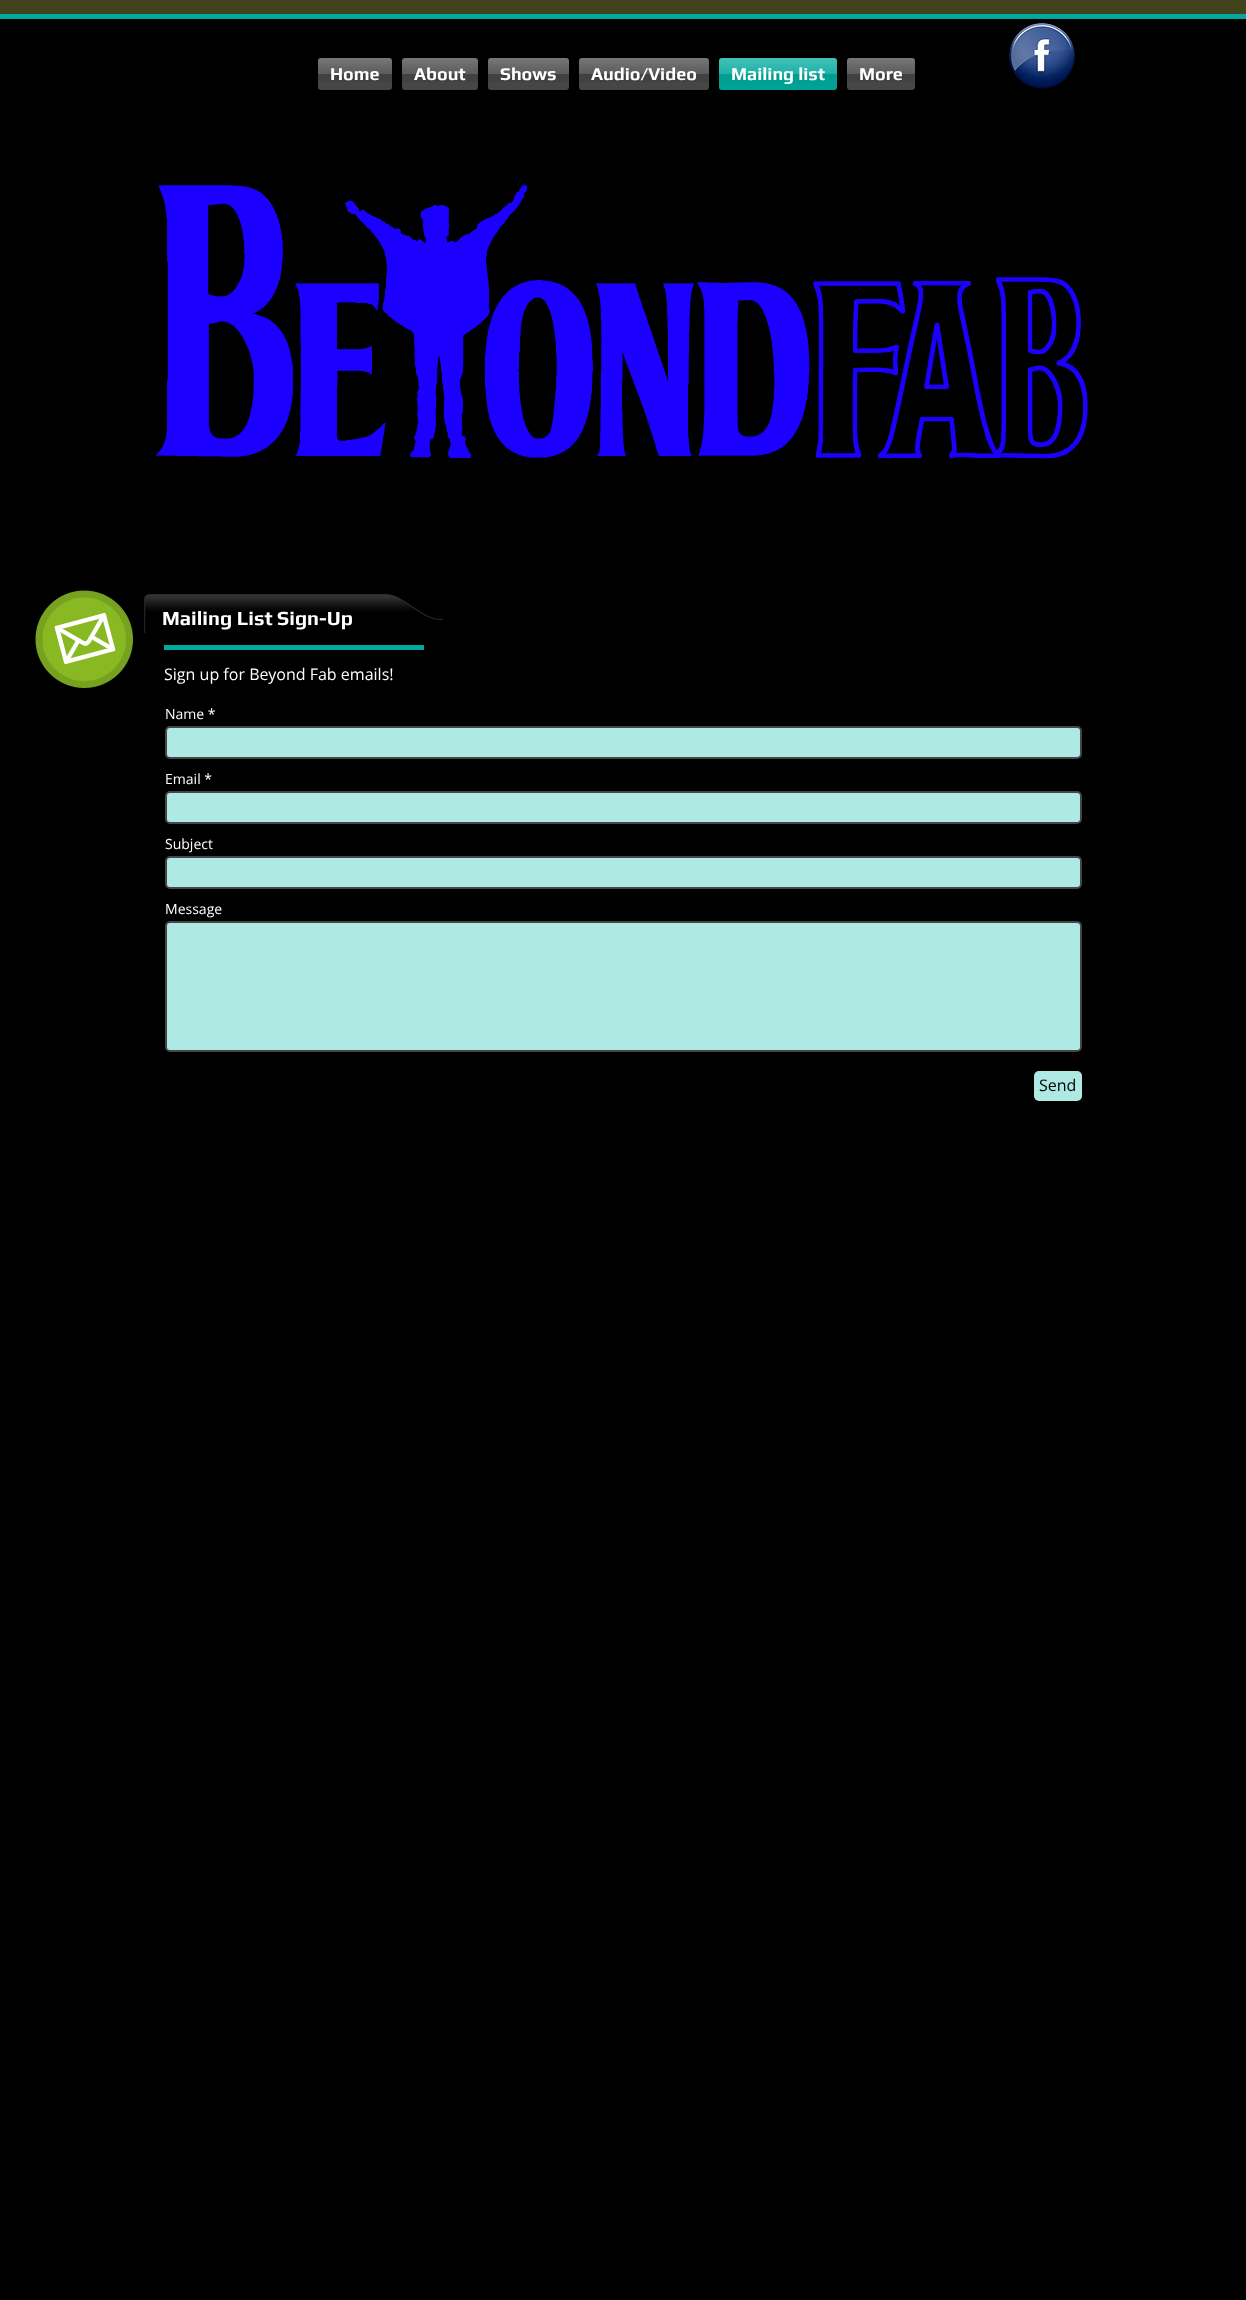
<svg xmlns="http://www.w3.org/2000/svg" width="1246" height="2300">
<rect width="100%" height="100%" fill="#000"/>
<rect width="1246" height="14" fill="#41431d"/>
<rect y="14" width="1246" height="5" fill="#00a99d"/>
<rect x="318" y="58" width="74" height="32" rx="3" fill="#474646"/>
<image x="318" y="58" width="74" height="24" href="media/1.png"/>
<text x="330" y="80" style="font-family:Play;font-size:18px;font-weight:bold;fill:#fff">Home</text>
<rect x="402" y="58" width="76" height="32" rx="3" fill="#474646"/>
<image x="402" y="58" width="76" height="24" href="media/2.png"/>
<text x="414" y="80" style="font-family:Play;font-size:18px;font-weight:bold;fill:#fff">About</text>
<rect x="488" y="58" width="81" height="32" rx="3" fill="#474646"/>
<image x="488" y="58" width="81" height="24" href="media/3.png"/>
<text x="500" y="80" style="font-family:Play;font-size:18px;font-weight:bold;fill:#fff">Shows</text>
<rect x="579" y="58" width="130" height="32" rx="3" fill="#474646"/>
<image x="579" y="58" width="130" height="24" href="media/4.png"/>
<text x="591" y="80" style="font-family:Play;font-size:18px;font-weight:bold;fill:#fff">Audio/Video</text>
<rect x="719" y="58" width="118" height="32" rx="3" fill="#00a99d"/>
<image x="719" y="58" width="118" height="32" href="media/5.png"/>
<text x="731" y="80" style="font-family:Play;font-size:18px;font-weight:bold;fill:#fff">Mailing list</text>
<rect x="847" y="58" width="68" height="32" rx="3" fill="#474646"/>
<image x="847" y="58" width="68" height="24" href="media/6.png"/>
<text x="859" y="80" style="font-family:Play;font-size:18px;font-weight:bold;fill:#fff">More</text>
<image x="1009" y="23" width="66" height="66" href="media/7.png"/>
<image x="141" y="159" width="962" height="302" href="media/8.png"/>
<image x="35" y="590" width="98" height="98" href="media/9.png"/>
<image x="144" y="594" width="299" height="39" href="media/10.png"/>
<text x="162" y="625" style="font-family:Play;font-size:20px;font-weight:bold;fill:#fff">Mailing List Sign-Up</text>
<rect x="164" y="645" width="260" height="5" fill="#00a99d"/>
<text x="164" y="680" style="font-family:Open Sans;font-size:16px;fill:#fff">Sign up for Beyond Fab emails!</text>
<text x="165" y="719" style="font-family:Open Sans;font-size:14px;fill:#fff">Name *</text>
<rect x="166" y="727" width="915" height="31" rx="4" fill="#aee9e4" stroke="#474646" stroke-width="2"/>
<text x="165" y="784" style="font-family:Open Sans;font-size:14px;fill:#fff">Email *</text>
<rect x="166" y="792" width="915" height="31" rx="4" fill="#aee9e4" stroke="#474646" stroke-width="2"/>
<text x="165" y="849" style="font-family:Open Sans;font-size:14px;fill:#fff">Subject</text>
<rect x="166" y="857" width="915" height="31" rx="4" fill="#aee9e4" stroke="#474646" stroke-width="2"/>
<text x="165" y="914" style="font-family:Open Sans;font-size:14px;fill:#fff">Message</text>
<rect x="166" y="922" width="915" height="129" rx="4" fill="#aee9e4" stroke="#474646" stroke-width="2"/>
<rect x="1034" y="1071" width="48" height="30" rx="5" fill="#aee9e4"/>
<text x="1039" y="1091" style="font-family:Open Sans;font-size:16px;fill:#000">Send</text>
</svg>
